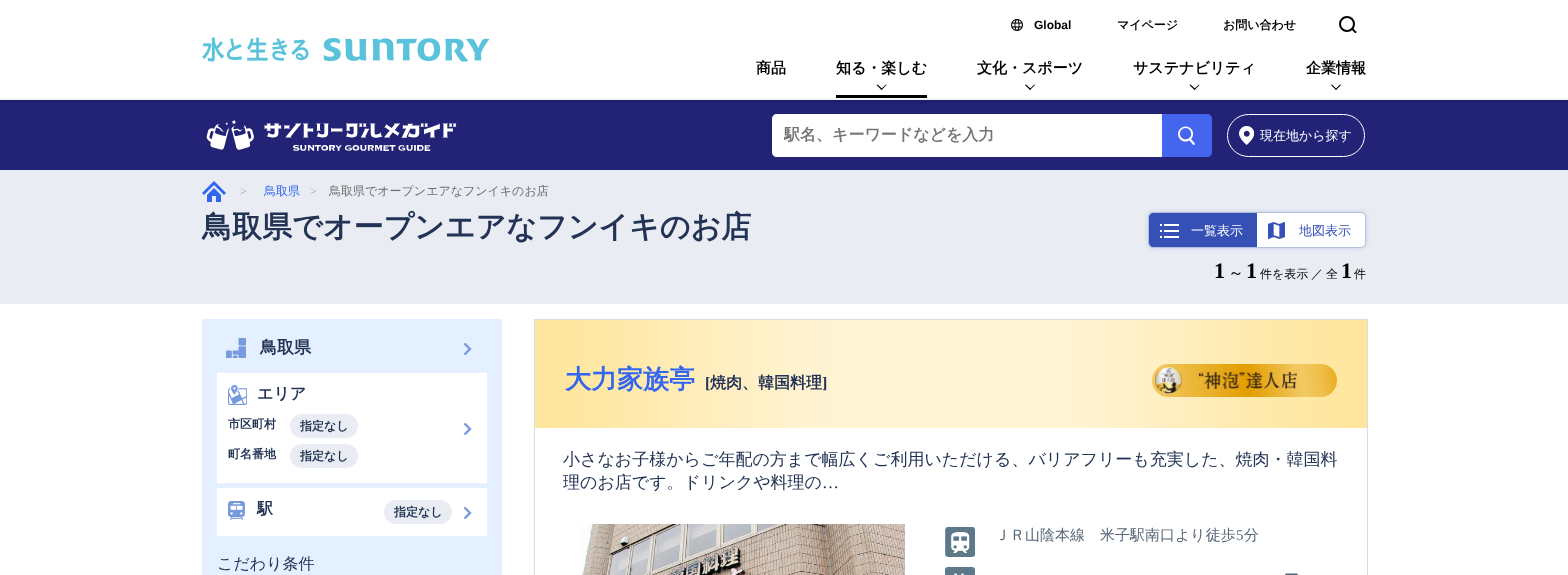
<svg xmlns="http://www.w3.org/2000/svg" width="1568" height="575">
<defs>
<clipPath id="clip1"><rect x="784" y="125" width="358" height="21"/></clipPath>
</defs>
<rect width="100%" height="100%" fill="#fff"/>
<image x="202" y="37" width="288" height="25" href="media/1.png"/>
<image x="1011" y="19" width="12" height="12" href="media/2.png"/>
<text x="1034" y="29" style="font-family:Liberation Sans;font-size:12px;font-weight:bold;fill:#000">Global</text>
<text x="1117" y="29" style="font-family:WenQuanYi Zen Hei;font-size:12px;font-weight:bold;fill:#000">マイページ</text>
<text x="1223" y="29" style="font-family:WenQuanYi Zen Hei;font-size:12px;font-weight:bold;fill:#000">お問い合わせ</text>
<circle cx="1347" cy="24" r="7" fill="none" stroke="#000" stroke-width="2"/>
<path d="M1353.5 28.5l1.5 2c.5 .5 2 1 1.5 2c-1 2-3.5-1.5-4-2c-1.5-1.5 0-3 1-2z" fill="#000"/>
<text x="756" y="73" style="font-family:WenQuanYi Zen Hei;font-size:15px;font-weight:bold;fill:#000">商品</text>
<text x="836" y="73" style="font-family:WenQuanYi Zen Hei;font-size:15px;font-weight:bold;fill:#000">知る・楽しむ</text>
<path d="M886.5 85l-5 5l-.5-1l5-4.5z" fill="#000"/>
<path d="M882.5 89l-1 1l-5-5l1-.5z" fill="#000"/>
<rect x="836" y="95" width="91" height="3" fill="#000"/>
<text x="977" y="73" style="font-family:WenQuanYi Zen Hei;font-size:15px;font-weight:bold;fill:#000">文化・スポーツ</text>
<path d="M1035 85l-5 5l-.5-1l5-4.5z" fill="#000"/>
<path d="M1031 89l-1 1l-5-5l1-.5z" fill="#000"/>
<text x="1133" y="73" style="font-family:WenQuanYi Zen Hei;font-size:15px;font-weight:bold;fill:#000">サステナビリティ</text>
<path d="M1199.5 85l-5 5l-.5-1l5-4.5z" fill="#000"/>
<path d="M1195.5 89l-1 1l-5-5l1-.5z" fill="#000"/>
<text x="1306" y="73" style="font-family:WenQuanYi Zen Hei;font-size:15px;font-weight:bold;fill:#000">企業情報</text>
<path d="M1341 85l-5 5l-.5-1l4.5-4.5z" fill="#000"/>
<path d="M1336.5 89l-.5 1l-5-5l1-.5z" fill="#000"/>
<rect y="100" width="1568" height="70" fill="#227"/>
<rect y="100" width="1568" height="2" fill="#00000029" filter="blur(1.5px)"/>
<image x="206" y="120" width="251" height="31" href="media/3.png"/>
<path d="M777 114h385v43h-385c-3 0-5-2-5-5v-33c0-3 2-5 5-5z" fill="#fff"/>
<g clip-path="url(#clip1)">
<text x="784" y="140" style="font-family:WenQuanYi Zen Hei;font-size:16px;font-weight:bold;fill:#757575">駅名、キーワードなどを入力</text>
</g>
<path d="M1162 114h45c3 0 5 2 5 5v33c0 3-2 5-5 5h-45z" fill="#46e"/>
<image x="1178" y="126" width="17" height="19" href="media/4.png"/>
<rect x="1227.5" y="114.5" width="137" height="42" rx="21" fill="none" stroke="#fff"/>
<image x="1239" y="126" width="15" height="19" href="media/5.png"/>
<text x="1260" y="140" style="font-family:WenQuanYi Zen Hei;font-size:13px;font-weight:500;fill:#fff">現在地から探す</text>
<rect y="170" width="1568" height="134" fill="#e9edf3"/>
<image x="202" y="181" width="24" height="21" href="media/6.png"/>
<text x="240" y="195" style="font-family:Liberation Serif;font-size:12px;fill:#9ab">&gt;</text>
<text x="264" y="195" style="font-family:WenQuanYi Zen Hei;font-size:12px;font-weight:500;fill:#36e">鳥取県</text>
<text x="310" y="195" style="font-family:Liberation Serif;font-size:12px;fill:#9ab">&gt;</text>
<text x="329" y="195" style="font-family:WenQuanYi Zen Hei;font-size:12px;font-weight:500;fill:#6e6e6e">鳥取県でオープンエアなフンイキのお店</text>
<text x="202" y="237" style="font-family:WenQuanYi Zen Hei;font-size:30px;font-weight:bold;fill:#235">鳥取県でオープンエアなフンイキのお店</text>
<rect x="1148" y="212" width="218" height="36" rx="5" fill="#3650b633" filter="blur(2.5px)"/>
<rect x="1148.5" y="212.5" width="217" height="35" rx="4.5" fill="none" stroke="#3650b633"/>
<path d="M1153 213h104v34h-104c-2 0-4-2-4-4v-26c0-2 2-4 4-4z" fill="#3650b6"/>
<image x="1160" y="224" width="19" height="14" href="media/7.png"/>
<text x="1191" y="235" style="font-family:WenQuanYi Zen Hei;font-size:13px;font-weight:500;fill:#fff">一覧表示</text>
<path d="M1257 213h104c2 0 4 2 4 4v26c0 2-2 4-4 4h-104z" fill="#fff"/>
<image x="1268" y="222" width="17" height="17" href="media/8.png"/>
<text x="1299" y="235" style="font-family:WenQuanYi Zen Hei;font-size:13px;font-weight:500;fill:#3650b6">地図表示</text>
<text x="1214" y="278" style="font-family:Liberation Serif;font-size:22px;font-weight:bold;fill:#000">1</text>
<text x="1228" y="278" style="font-family:WenQuanYi Zen Hei;font-size:16px;font-weight:500;fill:#000">～</text>
<text x="1246" y="278" style="font-family:Liberation Serif;font-size:22px;font-weight:bold;fill:#000">1</text>
<text x="1260" y="278" word-spacing="-1" style="font-family:WenQuanYi Zen Hei;font-size:12px;font-weight:500;fill:#000">件を表示 ／</text>
<text x="1326" y="278" style="font-family:WenQuanYi Zen Hei;font-size:12px;font-weight:500;fill:#000">全</text>
<text x="1341" y="278" style="font-family:Liberation Serif;font-size:22px;font-weight:bold;fill:#000">1</text>
<text x="1354" y="278" style="font-family:WenQuanYi Zen Hei;font-size:12px;font-weight:500;fill:#000">件</text>
<rect x="202" y="319" width="300" height="256" fill="#e4f0ff"/>
<image x="226" y="338" width="20" height="20" href="media/9.png"/>
<text x="260" y="353" style="font-family:WenQuanYi Zen Hei;font-size:17px;font-weight:bold;fill:#235">鳥取県</text>
<image x="464" y="343" width="8" height="12" href="media/10.png"/>
<rect x="217" y="373" width="270" height="110" fill="#fff"/>
<image x="228" y="385" width="19" height="20" href="media/11.png"/>
<text x="257" y="399" style="font-family:WenQuanYi Zen Hei;font-size:16px;font-weight:bold;fill:#235">エリア</text>
<image x="464" y="423" width="8" height="12" href="media/12.png"/>
<text x="228" y="428" style="font-family:WenQuanYi Zen Hei;font-size:12px;font-weight:bold;fill:#235">市区町村</text>
<rect x="290" y="414" width="68" height="24" rx="12" fill="#e9edf3"/>
<text x="300" y="430" style="font-family:WenQuanYi Zen Hei;font-size:12px;font-weight:bold;fill:#235">指定なし</text>
<text x="228" y="458" style="font-family:WenQuanYi Zen Hei;font-size:12px;font-weight:bold;fill:#235">町名番地</text>
<rect x="290" y="444" width="68" height="24" rx="12" fill="#e9edf3"/>
<text x="300" y="460" style="font-family:WenQuanYi Zen Hei;font-size:12px;font-weight:bold;fill:#235">指定なし</text>
<rect x="217" y="488" width="270" height="48" fill="#fff"/>
<image x="228" y="501" width="17" height="19" href="media/13.png"/>
<text x="257" y="514" style="font-family:WenQuanYi Zen Hei;font-size:16px;font-weight:bold;fill:#235">駅</text>
<image x="464" y="507" width="8" height="12" href="media/12.png"/>
<rect x="384" y="500" width="68" height="24" rx="12" fill="#e9edf3"/>
<text x="394" y="516" style="font-family:WenQuanYi Zen Hei;font-size:12px;font-weight:bold;fill:#235">指定なし</text>
<text x="217" y="569" style="font-family:WenQuanYi Zen Hei;font-size:16px;font-weight:500;fill:#235">こだわり条件</text>
<rect x="534.5" y="319.5" width="833" height="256" fill="none" stroke="#d6dde4"/>
<image x="535" y="320" width="832" height="108" href="media/14.png"/>
<text x="565" y="388" style="font-family:WenQuanYi Zen Hei;font-size:26px;font-weight:bold;fill:#36e">大力家族亭</text>
<text x="705" y="388" style="font-family:Liberation Serif;font-size:16px;font-weight:bold;fill:#235">[</text>
<text x="710" y="388" style="font-family:WenQuanYi Zen Hei;font-size:16px;font-weight:bold;fill:#235">焼肉、韓国料理</text>
<text x="822" y="388" style="font-family:Liberation Serif;font-size:16px;font-weight:bold;fill:#235">]</text>
<image x="1152" y="364" width="185" height="33" href="media/15.png"/>
<text x="563" y="465" style="font-family:WenQuanYi Zen Hei;font-size:17px;font-weight:500;fill:#235">小さなお子様からご年配の方まで幅広くご利用いただける、バリアフリーも充実した、焼肉・韓国料</text>
<text x="563" y="488" style="font-family:WenQuanYi Zen Hei;font-size:17px;font-weight:500;fill:#235">理のお店です。ドリンクや料理の</text>
<text x="822" y="488" style="font-family:Liberation Serif;font-size:17px;fill:#235">…</text>
<image x="580" y="524" width="325" height="51" href="media/16.png"/>
<image x="945" y="527" width="30" height="30" href="media/17.png"/>
<text x="995" y="540" style="font-family:WenQuanYi Zen Hei;font-size:15px;font-weight:500;fill:#567">ＪＲ山陰本線　米子駅南口より徒歩</text>
<text x="1236" y="540" style="font-family:Liberation Serif;font-size:15px;fill:#567">5</text>
<text x="1244" y="540" style="font-family:WenQuanYi Zen Hei;font-size:15px;font-weight:500;fill:#567">分</text>
<image x="945" y="567" width="30" height="8" href="media/18.png"/>
<text x="1284" y="580" style="font-family:WenQuanYi Zen Hei;font-size:15px;font-weight:500;fill:#567">ー</text>
</svg>
